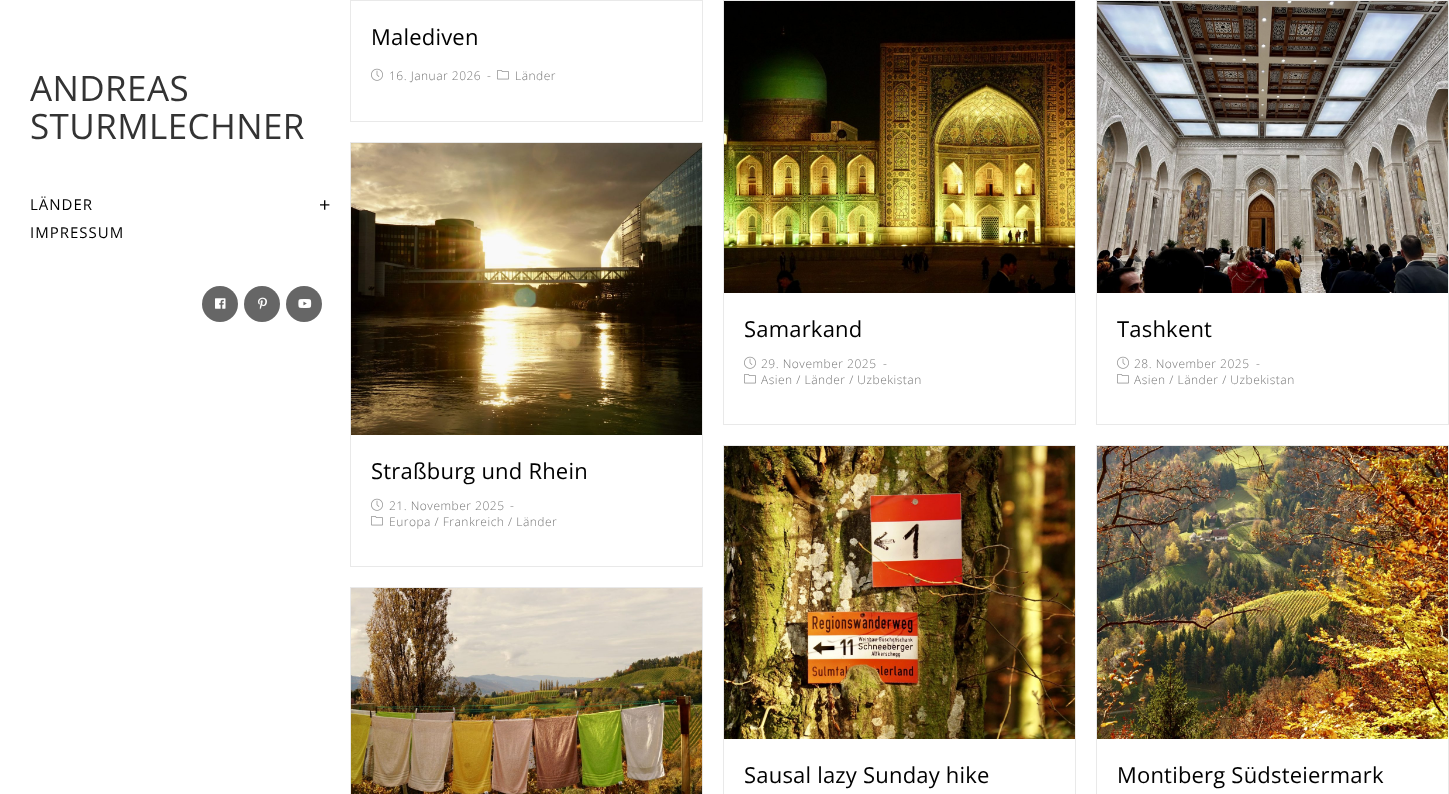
<svg xmlns="http://www.w3.org/2000/svg" width="1449" height="794">
<rect width="100%" height="100%" fill="#fff"/>
<text x="30" y="101" style="font-family:Open Sans;font-size:35px;letter-spacing:0.4px;fill:#333">ANDREAS</text>
<text x="30" y="139" style="font-family:Open Sans;font-size:35px;letter-spacing:0.4px;fill:#333">STURMLECHNER</text>
<text x="30" y="210" style="font-family:Open Sans;font-size:15px;letter-spacing:1px;fill:#000">LÄNDER</text>
<text x="319" y="212" style="font-family:Open Sans;font-size:20px;letter-spacing:1px;fill:#000">+</text>
<text x="30" y="238" style="font-family:Open Sans;font-size:15px;letter-spacing:1px;fill:#000">IMPRESSUM</text>
<circle cx="220" cy="304" r="18" fill="#666"/>
<image x="215" y="298" width="11" height="11" href="media/1.png"/>
<circle cx="262" cy="304" r="18" fill="#666"/>
<image x="258" y="297" width="9" height="13" href="media/2.png"/>
<circle cx="304" cy="304" r="18" fill="#666"/>
<image x="298" y="299" width="14" height="9" href="media/3.png"/>
<rect x="350.5" y="0.5" width="352" height="121" fill="none" stroke="#e9e9e9"/>
<text x="371" y="45" style="font-family:Open Sans;font-size:22px;letter-spacing:0.2px;fill:#000">Malediven</text>
<image x="371" y="68" width="12" height="13" href="media/4.png"/>
<text x="389" y="80" style="font-family:Open Sans;font-size:12px;font-weight:300;letter-spacing:0.5px;fill:#777">16. Januar 2026</text>
<text x="487" y="80" style="font-family:Open Sans;font-size:12px;font-weight:300;letter-spacing:0.5px;fill:#777">-</text>
<image x="497" y="70" width="12" height="10" href="media/5.png"/>
<text x="515" y="80" style="font-family:Open Sans;font-size:12px;font-weight:300;letter-spacing:0.5px;fill:#777">Länder</text>
<rect x="723.5" y="0.5" width="352" height="424" fill="none" stroke="#e9e9e9"/>
<image x="724" y="1" width="351" height="292" href="media/6.png"/>
<text x="744" y="337" style="font-family:Open Sans;font-size:22px;letter-spacing:0.2px;fill:#000">Samarkand</text>
<image x="744" y="356" width="12" height="13" href="media/4.png"/>
<text x="761" y="368" style="font-family:Open Sans;font-size:12px;font-weight:300;letter-spacing:0.5px;fill:#777">29. November 2025</text>
<text x="883" y="368" style="font-family:Open Sans;font-size:12px;font-weight:300;letter-spacing:0.5px;fill:#777">-</text>
<image x="744" y="374" width="12" height="10" href="media/5.png"/>
<text x="761" y="384" style="font-family:Open Sans;font-size:12px;font-weight:300;letter-spacing:0.5px;fill:#777">Asien / Länder / Uzbekistan</text>
<rect x="1096.5" y="0.5" width="352" height="424" fill="none" stroke="#e9e9e9"/>
<image x="1097" y="1" width="351" height="292" href="media/7.png"/>
<text x="1117" y="337" style="font-family:Open Sans;font-size:22px;letter-spacing:0.2px;fill:#000">Tashkent</text>
<image x="1117" y="356" width="12" height="13" href="media/4.png"/>
<text x="1134" y="368" style="font-family:Open Sans;font-size:12px;font-weight:300;letter-spacing:0.5px;fill:#777">28. November 2025</text>
<text x="1256" y="368" style="font-family:Open Sans;font-size:12px;font-weight:300;letter-spacing:0.5px;fill:#777">-</text>
<image x="1117" y="374" width="12" height="10" href="media/5.png"/>
<text x="1134" y="384" style="font-family:Open Sans;font-size:12px;font-weight:300;letter-spacing:0.5px;fill:#777">Asien / Länder / Uzbekistan</text>
<rect x="350.5" y="142.5" width="352" height="424" fill="none" stroke="#e9e9e9"/>
<image x="351" y="143" width="351" height="292" href="media/8.png"/>
<text x="371" y="479" style="font-family:Open Sans;font-size:22px;letter-spacing:0.2px;fill:#000">Straßburg und Rhein</text>
<image x="371" y="498" width="12" height="13" href="media/4.png"/>
<text x="389" y="510" style="font-family:Open Sans;font-size:12px;font-weight:300;letter-spacing:0.5px;fill:#777">21. November 2025</text>
<text x="510" y="510" style="font-family:Open Sans;font-size:12px;font-weight:300;letter-spacing:0.5px;fill:#777">-</text>
<image x="371" y="516" width="12" height="10" href="media/5.png"/>
<text x="389" y="526" style="font-family:Open Sans;font-size:12px;font-weight:300;letter-spacing:0.5px;fill:#777">Europa / Frankreich / Länder</text>
<rect x="350.5" y="587.5" width="352" height="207" fill="none" stroke="#e9e9e9"/>
<image x="351" y="588" width="351" height="206" href="media/9.png"/>
<rect x="723.5" y="445.5" width="352" height="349" fill="none" stroke="#e9e9e9"/>
<image x="724" y="446" width="351" height="293" href="media/10.png"/>
<text x="744" y="783" style="font-family:Open Sans;font-size:22px;letter-spacing:0.2px;fill:#000">Sausal lazy Sunday hike</text>
<rect x="1096.5" y="445.5" width="352" height="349" fill="none" stroke="#e9e9e9"/>
<image x="1097" y="446" width="351" height="293" href="media/11.png"/>
<text x="1117" y="783" style="font-family:Open Sans;font-size:22px;letter-spacing:0.2px;fill:#000">Montiberg Südsteiermark</text>
</svg>
